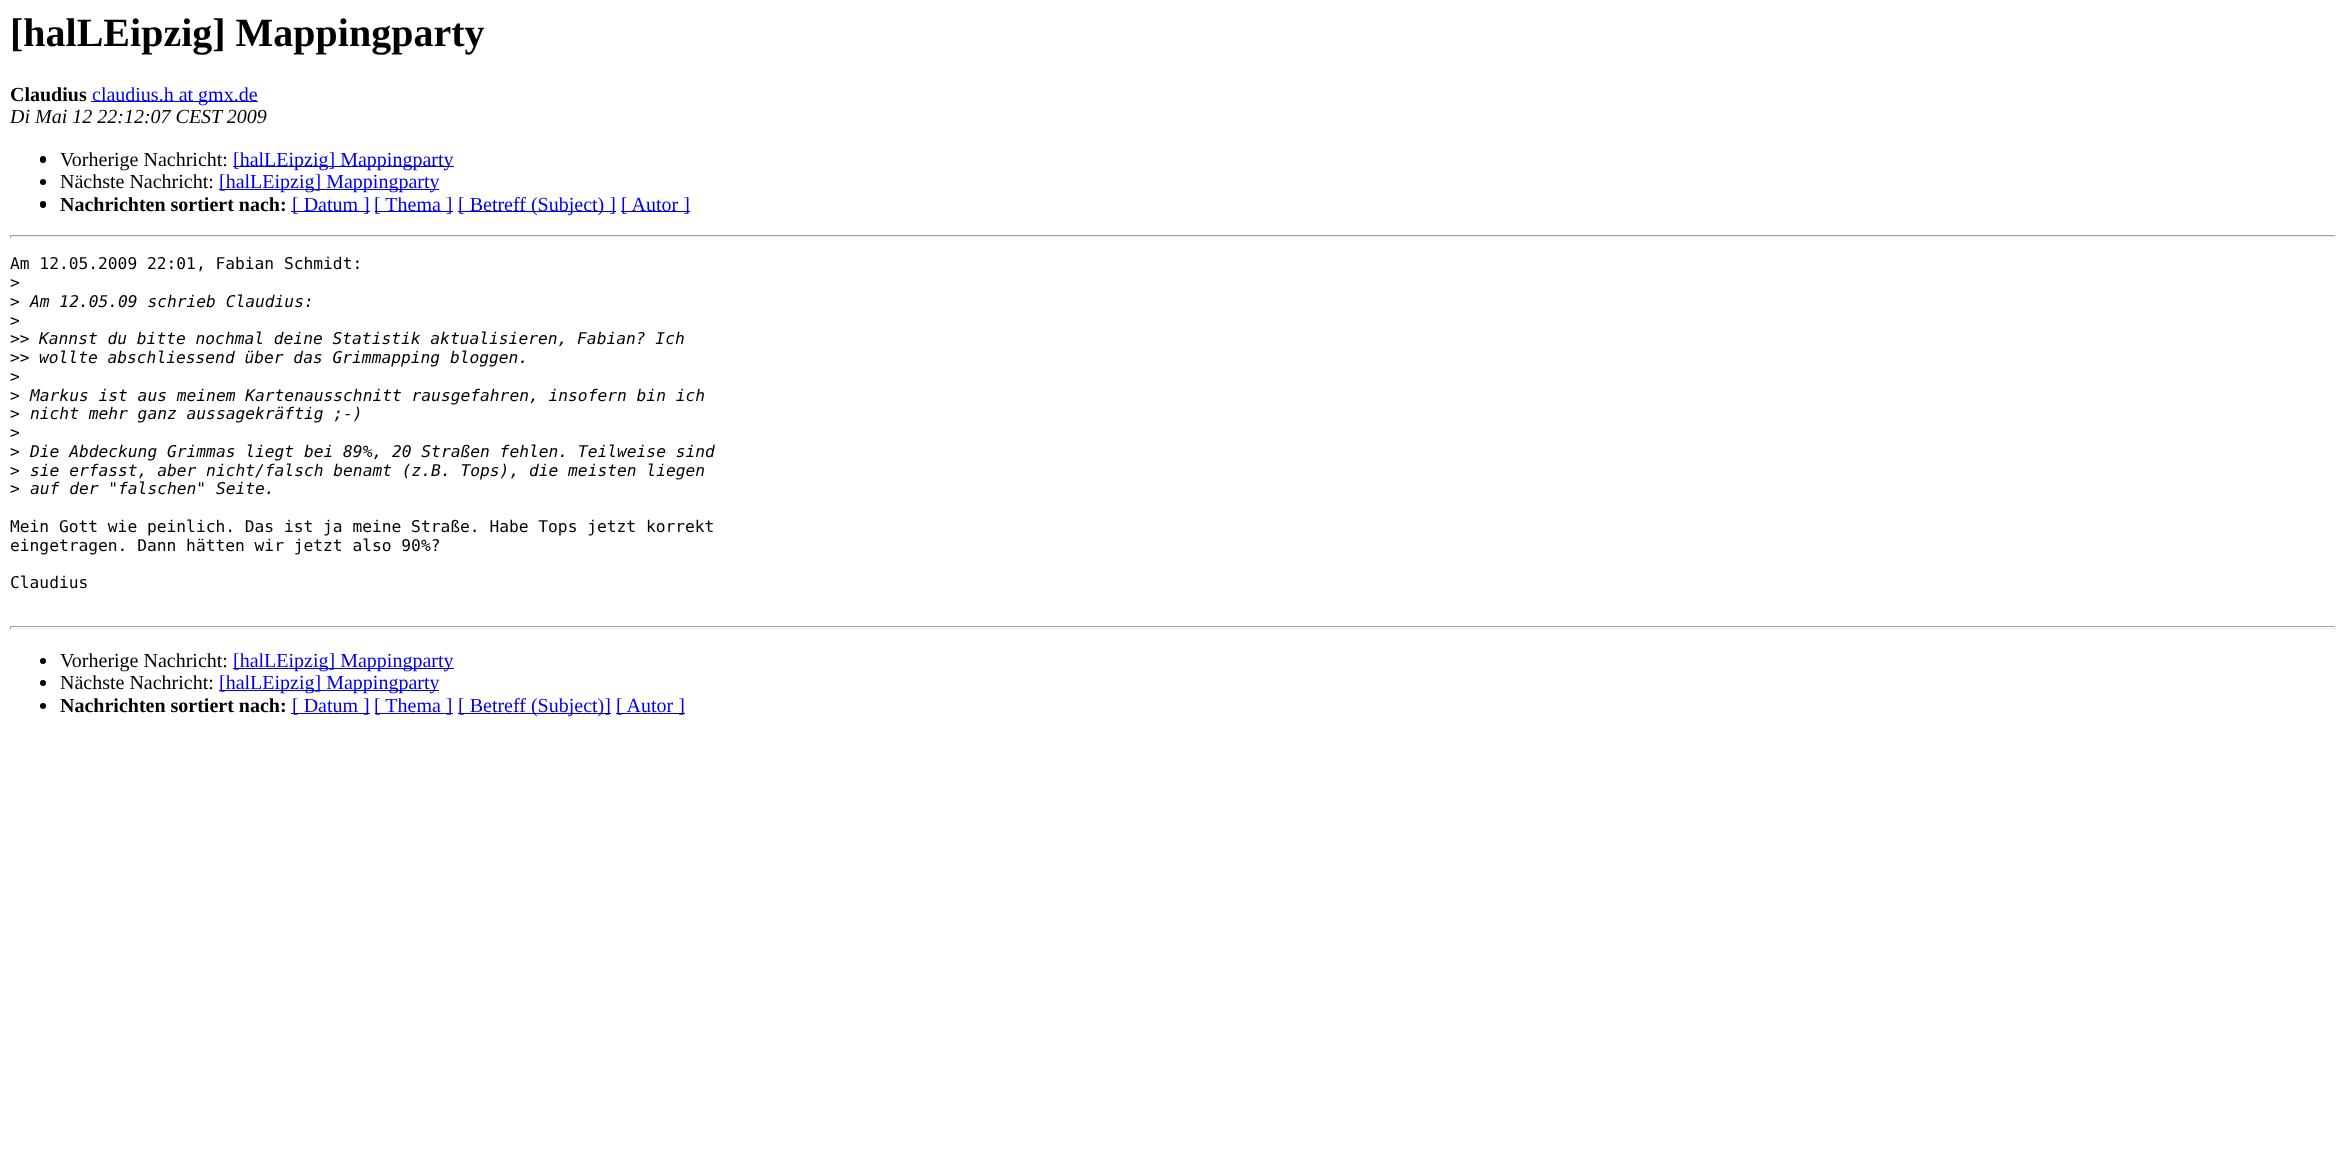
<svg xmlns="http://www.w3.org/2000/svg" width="2346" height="1149">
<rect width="100%" height="100%" fill="#fff"/>
<text x="10" y="46" style="font-family:Liberation Serif;font-size:40px;font-weight:bold;fill:#000">[halLEipzig] Mappingparty</text>
<text x="10" y="101" style="font-family:Liberation Serif;font-size:20px;font-weight:bold;fill:#000">Claudius</text>
<rect x="91" y="101" width="167" height="1" fill="#00e"/>
<text x="92" y="101" style="font-family:Liberation Serif;font-size:20px;fill:#00e">claudius.h at gmx.de</text>
<text x="10" y="123" style="font-family:Liberation Serif;font-size:20px;font-style:italic;fill:#000">Di Mai 12 22:12:07 CEST 2009</text>
<rect x="40" y="156" width="6" height="7" rx="3" fill="#000"/>
<text x="60" y="166" style="font-family:Liberation Serif;font-size:20px;fill:#000">Vorherige Nachricht:</text>
<rect x="233" y="166" width="221" height="1" fill="#00e"/>
<text x="233" y="166" style="font-family:Liberation Serif;font-size:20px;fill:#00e">[halLEipzig] Mappingparty</text>
<circle cx="43" cy="182" r="3" fill="#000"/>
<text x="60" y="188" style="font-family:Liberation Serif;font-size:20px;fill:#000">Nächste Nachricht:</text>
<rect x="219" y="189" width="220" height="1" fill="#00e"/>
<text x="219" y="188" style="font-family:Liberation Serif;font-size:20px;fill:#00e">[halLEipzig] Mappingparty</text>
<rect x="40" y="201" width="6" height="7" rx="3" fill="#000"/>
<text x="60" y="211" style="font-family:Liberation Serif;font-size:20px;font-weight:bold;fill:#000">Nachrichten sortiert nach:</text>
<rect x="291" y="211" width="79" height="1" fill="#00e"/>
<text x="292" y="211" style="font-family:Liberation Serif;font-size:20px;fill:#00e">[ Datum ]</text>
<rect x="375" y="211" width="78" height="1" fill="#00e"/>
<text x="374" y="211" style="font-family:Liberation Serif;font-size:20px;fill:#00e">[ Thema ]</text>
<rect x="458" y="211" width="158" height="1" fill="#00e"/>
<text x="458" y="211" style="font-family:Liberation Serif;font-size:20px;fill:#00e">[ Betreff (Subject) ]</text>
<rect x="621" y="211" width="69" height="1" fill="#00e"/>
<text x="621" y="211" style="font-family:Liberation Serif;font-size:20px;fill:#00e">[ Autor ]</text>
<rect x="10" y="235" width="2326" height="1" fill="#9f9f9f"/>
<rect x="2335" y="235" width="1" height="3" fill="#eee"/>
<rect x="10" y="236" width="2326" height="1" fill="#eee"/>
<rect x="10" y="235" width="1" height="3" fill="#9f9f9f"/>
<text x="10" y="269" style="font-family:DejaVu Sans Mono;font-size:16.25px;fill:#000">Am 12.05.2009 22:01, Fabian Schmidt:</text>
<text x="10" y="288" style="font-family:DejaVu Sans Mono;font-size:16.25px;fill:#000">&gt;</text>
<text x="10" y="307" style="font-family:DejaVu Sans Mono;font-size:16.25px;fill:#000">&gt;</text>
<text x="30" y="307" style="font-family:DejaVu Sans Mono;font-size:16.25px;font-style:italic;fill:#000">Am 12.05.09 schrieb Claudius:</text>
<text x="10" y="326" style="font-family:DejaVu Sans Mono;font-size:16.25px;fill:#000">&gt;</text>
<text x="10" y="344" style="font-family:DejaVu Sans Mono;font-size:16.25px;fill:#000">&gt;&gt;</text>
<text x="39" y="344" style="font-family:DejaVu Sans Mono;font-size:16.25px;font-style:italic;fill:#000">Kannst du bitte nochmal deine Statistik aktualisieren, Fabian? Ich</text>
<text x="10" y="363" style="font-family:DejaVu Sans Mono;font-size:16.25px;fill:#000">&gt;&gt;</text>
<text x="39" y="363" style="font-family:DejaVu Sans Mono;font-size:16.25px;font-style:italic;fill:#000">wollte abschliessend über das Grimmapping bloggen.</text>
<text x="10" y="382" style="font-family:DejaVu Sans Mono;font-size:16.25px;fill:#000">&gt;</text>
<text x="10" y="401" style="font-family:DejaVu Sans Mono;font-size:16.25px;fill:#000">&gt;</text>
<text x="30" y="401" style="font-family:DejaVu Sans Mono;font-size:16.25px;font-style:italic;fill:#000">Markus ist aus meinem Kartenausschnitt rausgefahren, insofern bin ich</text>
<text x="10" y="419" style="font-family:DejaVu Sans Mono;font-size:16.25px;fill:#000">&gt;</text>
<text x="30" y="419" style="font-family:DejaVu Sans Mono;font-size:16.25px;font-style:italic;fill:#000">nicht mehr ganz aussagekräftig ;-)</text>
<text x="10" y="438" style="font-family:DejaVu Sans Mono;font-size:16.25px;fill:#000">&gt;</text>
<text x="10" y="457" style="font-family:DejaVu Sans Mono;font-size:16.25px;fill:#000">&gt;</text>
<text x="30" y="457" style="font-family:DejaVu Sans Mono;font-size:16.25px;font-style:italic;fill:#000">Die Abdeckung Grimmas liegt bei 89%, 20 Straßen fehlen. Teilweise sind</text>
<text x="10" y="476" style="font-family:DejaVu Sans Mono;font-size:16.25px;fill:#000">&gt;</text>
<text x="30" y="476" style="font-family:DejaVu Sans Mono;font-size:16.25px;font-style:italic;fill:#000">sie erfasst, aber nicht/falsch benamt (z.B. Tops), die meisten liegen</text>
<text x="10" y="494" style="font-family:DejaVu Sans Mono;font-size:16.25px;fill:#000">&gt;</text>
<text x="30" y="494" style="font-family:DejaVu Sans Mono;font-size:16.25px;font-style:italic;fill:#000">auf der "falschen" Seite.</text>
<text x="10" y="532" style="font-family:DejaVu Sans Mono;font-size:16.25px;fill:#000">Mein Gott wie peinlich. Das ist ja meine Straße. Habe Tops jetzt korrekt</text>
<text x="10" y="551" style="font-family:DejaVu Sans Mono;font-size:16.25px;fill:#000">eingetragen. Dann hätten wir jetzt also 90%?</text>
<text x="10" y="588" style="font-family:DejaVu Sans Mono;font-size:16.25px;fill:#000">Claudius</text>
<rect x="10" y="626" width="2326" height="1" fill="#9f9f9f"/>
<rect x="2335" y="626" width="1" height="3" fill="#eee"/>
<rect x="10" y="628" width="2326" height="1" fill="#eee"/>
<rect x="10" y="626" width="1" height="3" fill="#9f9f9f"/>
<circle cx="43" cy="661" r="3" fill="#000"/>
<text x="60" y="667" style="font-family:Liberation Serif;font-size:20px;fill:#000">Vorherige Nachricht:</text>
<rect x="233" y="668" width="221" height="1" fill="#00e"/>
<text x="233" y="667" style="font-family:Liberation Serif;font-size:20px;fill:#00e">[halLEipzig] Mappingparty</text>
<circle cx="43" cy="683" r="3" fill="#000"/>
<text x="60" y="689" style="font-family:Liberation Serif;font-size:20px;fill:#000">Nächste Nachricht:</text>
<rect x="219" y="690" width="220" height="1" fill="#00e"/>
<text x="219" y="689" style="font-family:Liberation Serif;font-size:20px;fill:#00e">[halLEipzig] Mappingparty</text>
<circle cx="43" cy="706" r="3" fill="#000"/>
<text x="60" y="712" style="font-family:Liberation Serif;font-size:20px;font-weight:bold;fill:#000">Nachrichten sortiert nach:</text>
<rect x="291" y="713" width="79" height="1" fill="#00e"/>
<text x="292" y="712" style="font-family:Liberation Serif;font-size:20px;fill:#00e">[ Datum ]</text>
<rect x="375" y="713" width="78" height="1" fill="#00e"/>
<text x="374" y="712" style="font-family:Liberation Serif;font-size:20px;fill:#00e">[ Thema ]</text>
<rect x="458" y="713" width="153" height="1" fill="#00e"/>
<text x="458" y="712" style="font-family:Liberation Serif;font-size:20px;fill:#00e">[ Betreff (Subject)]</text>
<rect x="616" y="713" width="69" height="1" fill="#00e"/>
<text x="616" y="712" style="font-family:Liberation Serif;font-size:20px;fill:#00e">[ Autor ]</text>
</svg>
